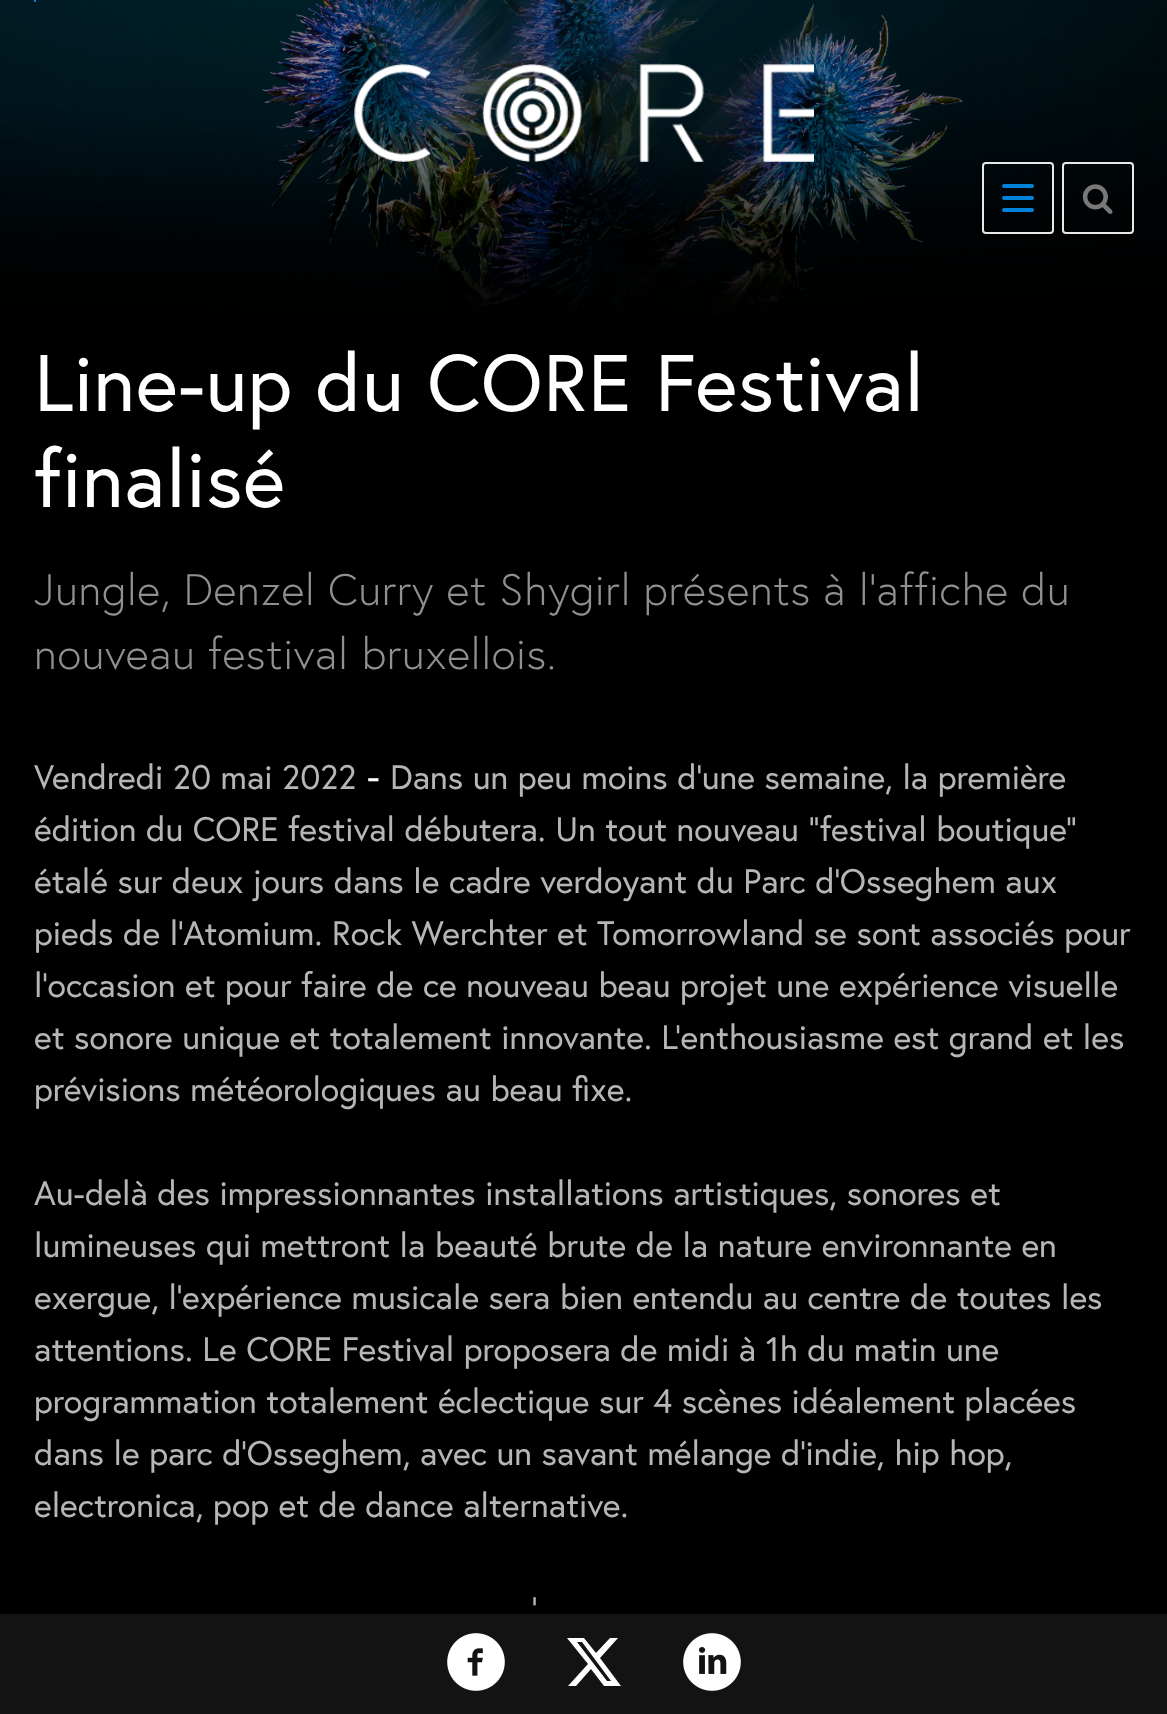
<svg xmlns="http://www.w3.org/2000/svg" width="1167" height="1714">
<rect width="100%" height="100%" fill="#000"/>
<image x="0" y="0" width="1167" height="315" href="media/1.png"/>
<rect x="34" width="2" height="2" fill="#0082db"/>
<image x="354" y="64" width="460" height="98" href="media/2.png"/>
<rect x="983" y="163" width="70" height="70" rx="3" fill="none" stroke="#e9e9e9" stroke-width="2"/>
<rect x="1002" y="184" width="32" height="4" rx="2" fill="#0082db"/>
<rect x="1002" y="196" width="32" height="4" rx="2" fill="#0082db"/>
<rect x="1002" y="208" width="32" height="4" rx="2" fill="#0082db"/>
<rect x="1063" y="163" width="70" height="70" rx="3" fill="none" stroke="#e9e9e9" stroke-width="2"/>
<image x="1082" y="184" width="31" height="30" href="media/3.png"/>
<text x="34" y="411" style="font-family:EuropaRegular;font-size:80px;letter-spacing:0.6px;fill:#fff">Line-up du CORE Festival</text>
<text x="34" y="507" style="font-family:EuropaRegular;font-size:80px;letter-spacing:0.6px;fill:#fff">finalisé</text>
<text x="34" y="605" style="font-family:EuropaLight;font-size:44px;font-weight:300;letter-spacing:0.6px;fill:#909090">Jungle, Denzel Curry et Shygirl présents à l’affiche du</text>
<text x="34" y="669" style="font-family:EuropaLight;font-size:44px;font-weight:300;letter-spacing:0.6px;fill:#909090">nouveau festival bruxellois.</text>
<text x="34" y="789" style="font-family:EuropaRegular;font-size:34px;fill:#b7b6b6">Vendredi 20 mai 2022</text>
<text x="367" y="789" style="font-family:EuropaRegular;font-size:38px;fill:#fff">-</text>
<text x="390" y="789" style="font-family:EuropaRegular;font-size:34px;fill:#b7b6b6">Dans un peu moins d’une semaine, la première</text>
<text x="34" y="841" style="font-family:EuropaRegular;font-size:34px;fill:#b7b6b6">édition du CORE festival débutera. Un tout nouveau “festival boutique”</text>
<text x="34" y="893" style="font-family:EuropaRegular;font-size:34px;fill:#b7b6b6">étalé sur deux jours dans le cadre verdoyant du Parc d’Osseghem aux</text>
<text x="34" y="945" style="font-family:EuropaRegular;font-size:34px;fill:#b7b6b6">pieds de l’Atomium. Rock Werchter et Tomorrowland se sont associés pour</text>
<text x="34" y="997" style="font-family:EuropaRegular;font-size:34px;fill:#b7b6b6">l’occasion et pour faire de ce nouveau beau projet une expérience visuelle</text>
<text x="34" y="1049" style="font-family:EuropaRegular;font-size:34px;fill:#b7b6b6">et sonore unique et totalement innovante. L’enthousiasme est grand et les</text>
<text x="34" y="1101" style="font-family:EuropaRegular;font-size:34px;fill:#b7b6b6">prévisions météorologiques au beau fixe.</text>
<text x="34" y="1205" style="font-family:EuropaRegular;font-size:34px;fill:#b7b6b6">Au-delà des impressionnantes installations artistiques, sonores et</text>
<text x="34" y="1257" style="font-family:EuropaRegular;font-size:34px;fill:#b7b6b6">lumineuses qui mettront la beauté brute de la nature environnante en</text>
<text x="34" y="1309" style="font-family:EuropaRegular;font-size:34px;fill:#b7b6b6">exergue, l’expérience musicale sera bien entendu au centre de toutes les</text>
<text x="34" y="1361" style="font-family:EuropaRegular;font-size:34px;fill:#b7b6b6">attentions. Le CORE Festival proposera de midi à 1h du matin une</text>
<text x="34" y="1413" style="font-family:EuropaRegular;font-size:34px;fill:#b7b6b6">programmation totalement éclectique sur 4 scènes idéalement placées</text>
<text x="34" y="1465" style="font-family:EuropaRegular;font-size:34px;fill:#b7b6b6">dans le parc d’Osseghem, avec un savant mélange d’indie, hip hop,</text>
<text x="34" y="1517" style="font-family:EuropaRegular;font-size:34px;fill:#b7b6b6">electronica, pop et de dance alternative.</text>
<text x="532" y="1621" style="font-family:EuropaRegular;font-size:34px;fill:#b7b6b6">’</text>
<rect y="1614" width="1167" height="100" fill="#131313"/>
<image x="447" y="1633" width="58" height="58" href="media/4.png"/>
<path d="M610 1638h8l-18 20l21 28h-17l-13-17l-15 17h-8l20-22l-21-26h17l12 15zm-3 43h4l-29-39h-5z" fill="#fff"/>
<image x="683" y="1633" width="58" height="58" href="media/5.png"/>
</svg>
